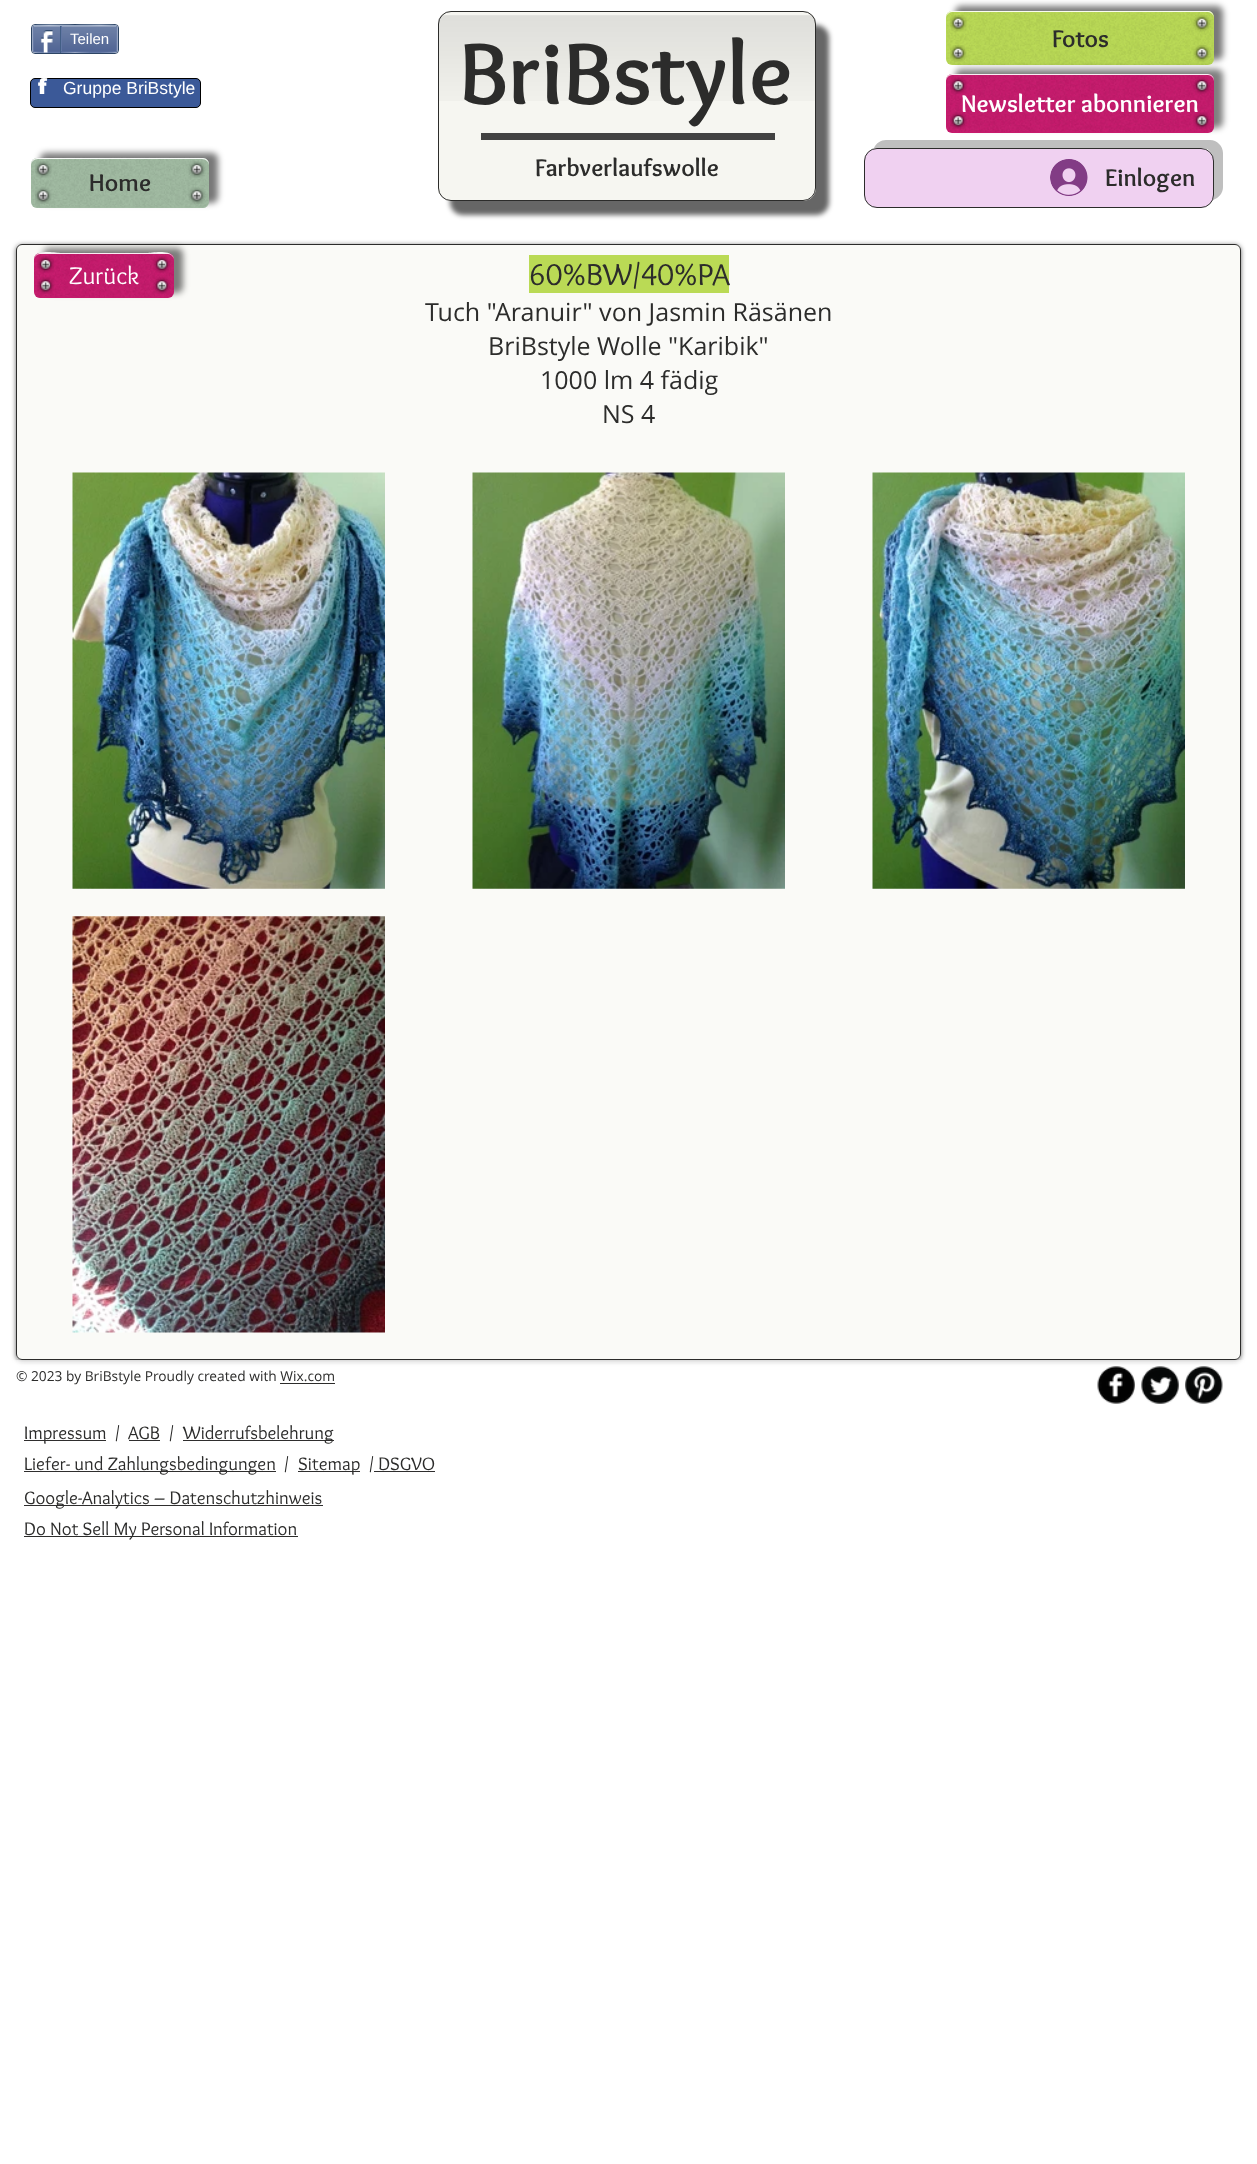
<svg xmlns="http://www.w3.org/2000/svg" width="1257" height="2164">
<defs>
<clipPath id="clip1"><path d="M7 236h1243v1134h-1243zm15 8h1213c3.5 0 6 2.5 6 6v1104c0 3.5-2.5 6-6 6h-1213c-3.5 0-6-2.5-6-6v-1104c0-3.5 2.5-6 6-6z" clip-rule="evenodd"/></clipPath>
</defs>
<rect width="100%" height="100%" fill="#fff"/>
<rect x="31.5" y="24.5" width="87" height="29" rx="3.5" fill="none" stroke="#2d4565"/>
<image x="32" y="26" width="86" height="27" href="media/1.png"/>
<path d="M33.5 26c2-1.5 37-.5 41.5-.5c4.5 0 39.5-1 41.5 .5" fill="none" stroke="#9aabc6" stroke-width="1.2"/>
<path d="M116.5 26l.5 1.5v22.5l-.5 1.5" fill="none" stroke="#6f83ad" stroke-width="1.2"/>
<path d="M116.5 51.5c-2 1.5-37 .5-41.5 .5c-4.5 0-39.5 1-41.5-.5" fill="none" stroke="#6176a3" stroke-width="1.2"/>
<path d="M33.5 51.5l-.5-1.5v-22.5l.5-1.5" fill="none" stroke="#6f83ad" stroke-width="1.2"/>
<image x="40" y="30" width="13" height="23" href="media/2.png"/>
<rect x="60" y="26" width="1" height="27" fill="#425e85"/>
<text x="70" y="44" style="font-family:Liberation Sans;font-size:15px;fill:#fff">Teilen</text>
<rect x="61" y="26" width="1" height="25" fill="#6176a3"/>
<rect x="450" y="25" width="379" height="190" rx="13" fill="#00000099" filter="blur(2.5px)"/>
<rect x="438" y="11" width="378" height="190" rx="13" fill="#f6f6f1"/>
<image x="438" y="15" width="378" height="86" href="media/3.png"/>
<rect x="438.5" y="11.5" width="377" height="189" rx="12.5" fill="none" stroke="#2c2c2b"/>
<text x="459" y="104" style="font-family:Overlock;font-size:90px;font-weight:bold;fill:#2c2c2b">BriBstyle</text>
<rect x="481" y="133" width="294" height="7" fill="#424242"/>
<text x="535" y="176" style="font-family:Overlock;font-size:25px;font-weight:bold;fill:#2c2c2b">Farbverlaufswolle</text>
<rect x="955" y="6" width="268" height="54" rx="6" fill="#00000087" filter="blur(3px)"/>
<rect x="946" y="11" width="268" height="54" rx="6" fill="#bada55"/>
<image x="946" y="11" width="268" height="54" href="media/4.png"/>
<path d="M952 12h256c3 0 6 3 6 7c0-3-1-7-5-8h-258c-4 1-5 5-5 8c0-4 3-7 6-7z" fill="#ffffffeb"/>
<image x="950" y="15" width="17" height="17" href="media/5.png"/>
<image x="1193" y="15" width="18" height="17" href="media/6.png"/>
<text x="1052" y="47" style="font-family:Overlock;font-size:25px;font-weight:bold;fill:#2c2c2b">Fotos</text>
<image x="950" y="45" width="17" height="17" href="media/7.png"/>
<image x="1193" y="45" width="18" height="17" href="media/8.png"/>
<rect x="30.5" y="78.5" width="170" height="29" rx="4.5" fill="#3b5998" stroke="#000"/>
<text x="38" y="94" style="font-family:arial;font-size:22px;font-weight:900;fill:#fff">f</text>
<text x="63" y="94" style="font-family:Liberation Sans;font-size:17.5px;fill:#fff">Gruppe BriBstyle</text>
<rect x="955" y="69" width="268" height="59" rx="6" fill="#00000080" filter="blur(3px)"/>
<rect x="946" y="74" width="268" height="59" rx="6" fill="#c71a6d"/>
<image x="946" y="74" width="268" height="58" href="media/9.png"/>
<path d="M952 75h256c3 0 6 3 6 6v-1c0-3-3-6-6-6h-256c-3 0-6 3-6 6v1c0-3 3-6 6-6z" fill="#ffffffeb"/>
<image x="950" y="77" width="17" height="17" href="media/10.png"/>
<image x="1193" y="77" width="18" height="17" href="media/11.png"/>
<image x="950" y="112" width="17" height="17" href="media/12.png"/>
<image x="1193" y="112" width="18" height="17" href="media/13.png"/>
<text x="961" y="112" style="font-family:Overlock;font-size:25px;font-weight:bold;fill:#fff">Newsletter abonnieren</text>
<rect x="40" y="153" width="178" height="50" rx="6" fill="#00000087" filter="blur(3px)"/>
<rect x="31" y="158" width="178" height="50" rx="6" fill="#a1bba2"/>
<image x="31" y="157" width="178" height="51" href="media/14.png"/>
<path d="M38 159h164c4 0 7 3 7 6v-1c0-3-3-6-6-6h-166c-3 0-6 3-6 6v1c0-3 3-6 7-6z" fill="#ffffffeb"/>
<image x="35" y="161" width="17" height="17" href="media/15.png"/>
<image x="188" y="161" width="18" height="17" href="media/16.png"/>
<text x="89" y="191" style="font-family:Overlock;font-size:25px;font-weight:bold;fill:#2c2c2b">Home</text>
<image x="35" y="187" width="17" height="17" href="media/17.png"/>
<image x="188" y="187" width="18" height="17" href="media/18.png"/>
<path d="M886 140c-5 0-10 3-12 8h327c14 0 13 14 13 24v17c0 4 0 7-1 11c6-2 10-7 10-13v-34c0-7-6-13-13-13z" fill="#bfbfbf"/>
<rect x="864.5" y="148.5" width="349" height="59" rx="12.5" fill="#ebc1ecbf" stroke="#2c2c2b"/>
<image x="1050" y="159" width="38" height="37" href="media/19.png"/>
<text x="1105" y="186" style="font-family:Overlock;font-size:25px;font-weight:bold;fill:#2c2c2b">Einlogen</text>
<g clip-path="url(#clip1)">
<rect x="16" y="245" width="1225" height="1116" rx="6" fill="#00000099" filter="blur(2.5px)"/>
</g>
<rect x="16.5" y="244.5" width="1224" height="1115" rx="5.5" fill="#f2f2eb66" stroke="#2c2c2b"/>
<rect x="43" y="248" width="140" height="45" rx="6" fill="#00000080" filter="blur(3px)"/>
<rect x="34" y="253" width="140" height="45" rx="6" fill="#c71a6d"/>
<image x="34" y="252" width="140" height="46" href="media/20.png"/>
<path d="M40 254h128c3 0 6 3 6 6c0-12-23-7-27-7h-86c-4 0-27-5-27 7c0-3 3-6 6-6z" fill="#ffffffeb"/>
<image x="37" y="256" width="17" height="17" href="media/21.png"/>
<text x="69" y="284" style="font-family:Overlock;font-size:25px;fill:#fff">Zurück</text>
<image x="153" y="256" width="18" height="17" href="media/22.png"/>
<image x="37" y="277" width="17" height="17" href="media/23.png"/>
<image x="153" y="277" width="18" height="17" href="media/24.png"/>
<rect x="529" y="255" width="200" height="38" fill="#bada55"/>
<text x="529" y="285" style="font-family:Overlock;font-size:31.25px;fill:#2c2c2b">60%BW/40%PA</text>
<text x="425" y="321" style="font-family:Open Sans;font-size:25px;fill:#2c2c2b">Tuch "Aranuir" von Jasmin Räsänen</text>
<text x="488" y="355" style="font-family:Open Sans;font-size:25px;fill:#2c2c2b">BriBstyle Wolle "Karibik"</text>
<text x="540" y="389" style="font-family:Open Sans;font-size:25px;fill:#2c2c2b">1000 lm 4 fädig</text>
<text x="602" y="423" style="font-family:Open Sans;font-size:25px;fill:#2c2c2b">NS 4</text>
<image x="72" y="472" width="313" height="417" href="media/25.png"/>
<image x="472" y="472" width="313" height="417" href="media/26.png"/>
<image x="872" y="472" width="313" height="417" href="media/27.png"/>
<image x="72" y="916" width="313" height="417" href="media/28.png"/>
<rect x="13" y="1360" width="1231" height="6" fill="#ffffff80"/>
<rect x="17" y="1360" width="1223" height="3" fill="#ffffff40"/>
<text x="16" y="1381" style="font-family:Open Sans;font-size:13.75px;fill:#2c2c2b">© 2023 by BriBstyle Proudly created with Wix.com</text>
<rect x="280" y="1383" width="55" height="1" fill="#2c2c2b"/>
<image x="1097" y="1366" width="38" height="38" href="media/29.png"/>
<image x="1141" y="1366" width="38" height="38" href="media/30.png"/>
<image x="1185" y="1366" width="38" height="38" href="media/31.png"/>
<rect x="24" y="1440" width="82" height="1" fill="#2f2e2e"/>
<text x="24" y="1439" style="font-family:Overlock;font-size:18.75px;fill:#2c2c2b">Impressum</text>
<text x="115" y="1439" style="font-family:Overlock;font-size:18.75px;fill:#2c2c2b">/</text>
<text x="128" y="1439" style="font-family:Overlock;font-size:18.75px;fill:#2c2c2b">AGB</text>
<rect x="129" y="1440" width="31" height="1" fill="#2f2e2e"/>
<text x="169" y="1439" style="font-family:Overlock;font-size:18.75px;fill:#2c2c2b">/</text>
<rect x="183" y="1440" width="151" height="1" fill="#2f2e2e"/>
<text x="183" y="1439" style="font-family:Overlock;font-size:18.75px;fill:#2c2c2b">Widerrufsbelehrung</text>
<rect x="24" y="1471" width="252" height="1" fill="#2f2e2e"/>
<text x="24" y="1470" style="font-family:Overlock;font-size:18.75px;fill:#2c2c2b">Liefer- und Zahlungsbedingungen</text>
<text x="284" y="1470" style="font-family:Overlock;font-size:18.75px;fill:#2c2c2b">/</text>
<rect x="298" y="1471" width="62" height="1" fill="#2f2e2e"/>
<text x="298" y="1470" style="font-family:Overlock;font-size:18.75px;fill:#2c2c2b">Sitemap</text>
<text x="369" y="1470" style="font-family:Overlock;font-size:18.75px;fill:#2c2c2b">/ DSGVO</text>
<rect x="374" y="1471" width="61" height="1" fill="#2f2e2e"/>
<rect x="24" y="1505" width="299" height="1" fill="#2f2e2e"/>
<text x="24" y="1504" style="font-family:Overlock;font-size:18.75px;fill:#2c2c2b">Google-Analytics – Datenschutzhinweis</text>
<rect x="24" y="1536" width="274" height="1" fill="#2c2c2b"/>
<text x="24" y="1535" style="font-family:Overlock;font-size:18.75px;fill:#2c2c2b">Do Not Sell My Personal Information</text>
</svg>
